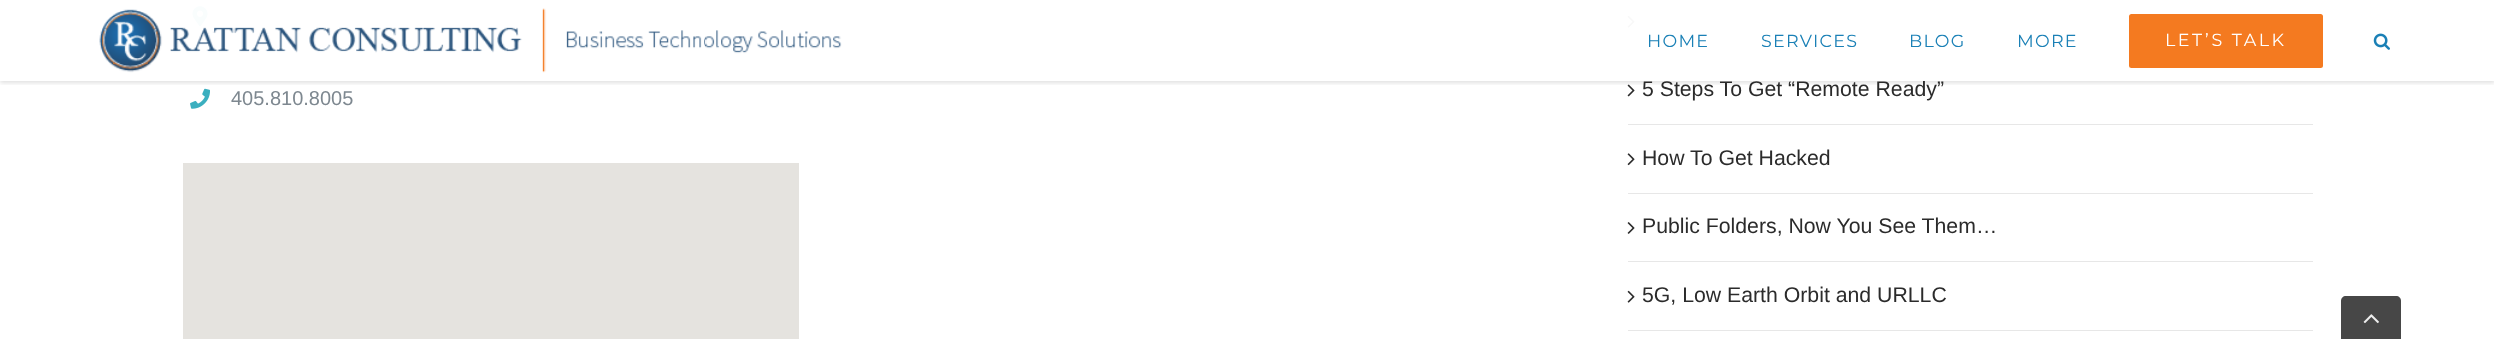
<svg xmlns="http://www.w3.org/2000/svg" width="2494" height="339">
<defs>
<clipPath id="clip1"><rect x="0" y="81" width="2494" height="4"/></clipPath>
</defs>
<rect width="100%" height="100%" fill="#fff"/>
<image x="192" y="6" width="16" height="21" href="media/3.png"/>
<image x="190" y="88" width="20" height="21" href="media/4.png"/>
<rect x="1628" y="55" width="501" height="1" fill="#e7e7e7"/>
<image x="1627" y="15" width="8" height="13" href="media/5.png"/>
<image x="1627" y="84" width="8" height="13" href="media/6.png"/>
<g clip-path="url(#clip1)">
<rect y="1" width="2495" height="82" fill="#0000001f" filter="blur(2px)"/>
</g>
<text x="1642" y="96" style="font-family:Liberation Sans;font-size:21.25px;fill:#2b2b2b">5 Steps To Get “Remote Ready”</text>
<rect x="192" y="6" width="1937" height="75" fill="#fffffff7"/>
<image x="99" y="8" width="743" height="65" href="media/1.png"/>
<text x="1647" y="47" style="font-family:Montserrat;font-size:17.5px;font-weight:100;letter-spacing:1.25px;fill:#1a80b6">HOME</text>
<text x="1761" y="47" style="font-family:Montserrat;font-size:17.5px;font-weight:100;letter-spacing:1.25px;fill:#1a80b6">SERVICES</text>
<text x="1909" y="47" style="font-family:Montserrat;font-size:17.5px;font-weight:100;letter-spacing:1.25px;fill:#1a80b6">BLOG</text>
<text x="2017" y="47" style="font-family:Montserrat;font-size:17.5px;font-weight:100;letter-spacing:1.25px;fill:#1a80b6">MORE</text>
<rect x="2129" y="14" width="194" height="54" rx="2.5" fill="#f47a20"/>
<text x="2165" y="46" style="font-family:Montserrat;font-size:17.5px;font-weight:100;letter-spacing:2.5px;fill:#fff">LET’S TALK</text>
<image x="2373" y="33" width="17" height="17" href="media/2.png"/>
<text x="231" y="105" style="font-family:Liberation Sans;font-size:20px;fill:#7e8890">405.810.8005</text>
<rect x="183" y="163" width="616" height="176" fill="#e5e3df"/>
<rect x="1628" y="124" width="685" height="1" fill="#e7e7e7"/>
<rect x="1628" y="193" width="685" height="1" fill="#e7e7e7"/>
<image x="1627" y="153" width="8" height="13" href="media/7.png"/>
<text x="1642" y="165" style="font-family:Liberation Sans;font-size:21.25px;fill:#2b2b2b">How To Get Hacked</text>
<rect x="1628" y="261" width="685" height="1" fill="#e7e7e7"/>
<image x="1627" y="222" width="8" height="12" href="media/8.png"/>
<text x="1642" y="233" style="font-family:Liberation Sans;font-size:21.25px;fill:#2b2b2b">Public Folders, Now You See Them…</text>
<rect x="1628" y="330" width="685" height="1" fill="#e7e7e7"/>
<image x="1627" y="290" width="8" height="13" href="media/5.png"/>
<text x="1642" y="302" style="font-family:Liberation Sans;font-size:21.25px;fill:#2b2b2b">5G, Low Earth Orbit and URLLC</text>
<path d="M2346 296h50c3 0 5 2 5 5v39h-60v-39c0-3 2-5 5-5z" fill="#474747"/>
<image x="2363" y="314" width="16" height="10" href="media/9.png"/>
</svg>
